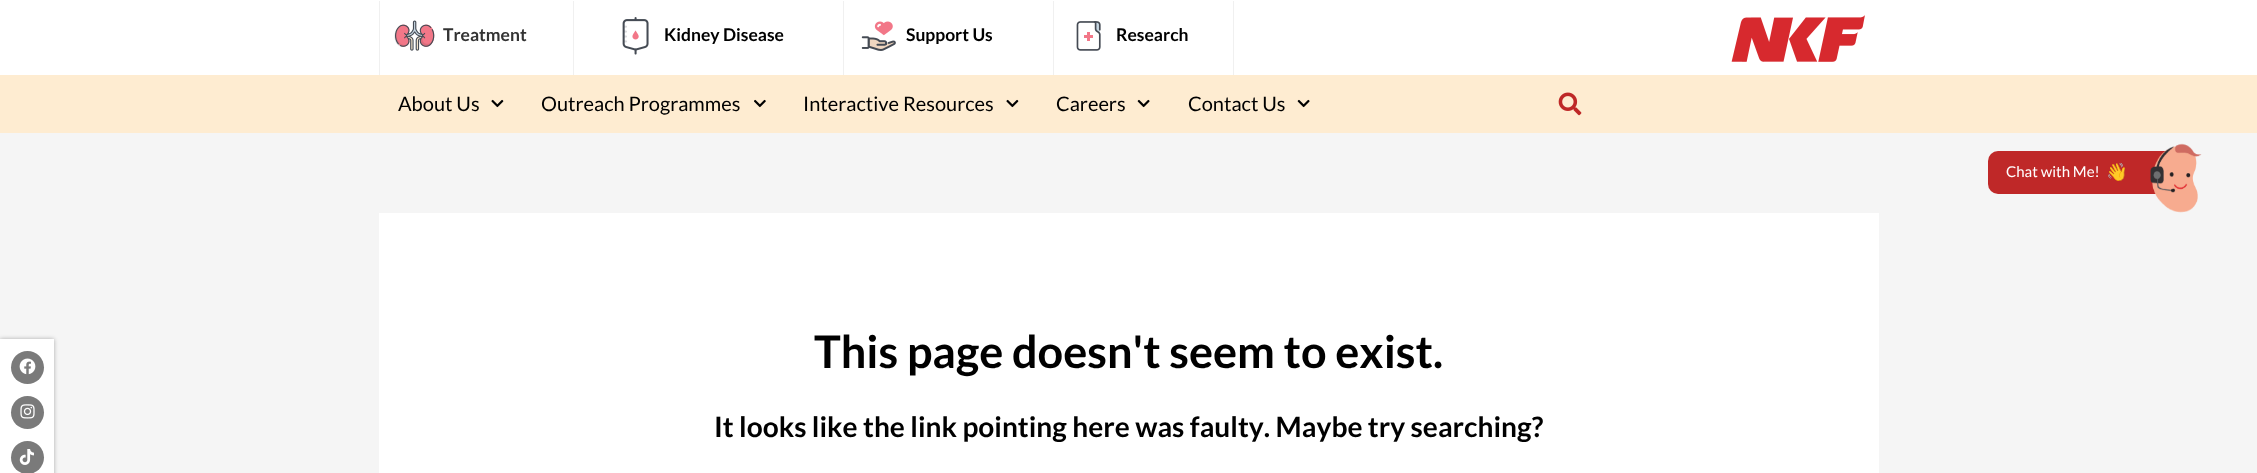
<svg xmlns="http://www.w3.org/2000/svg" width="2257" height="473">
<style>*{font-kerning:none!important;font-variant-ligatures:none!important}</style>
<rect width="100%" height="100%" fill="#f5f5f5"/>
<rect width="2257" height="75" fill="#fff"/>
<rect x="573" y="1" width="1" height="74" fill="#f0f0f0"/>
<rect x="379" y="1" width="1" height="74" fill="#f0f0f0"/>
<image x="394" y="20" width="41" height="31" href="media/1.png"/>
<text x="443" y="41" style="font-family:Lato;font-size:17.5px;font-weight:bold;fill:#333">Treatment</text>
<rect x="843" y="1" width="1" height="74" fill="#f0f0f0"/>
<image x="622" y="17" width="27" height="38" href="media/2.png"/>
<text x="664" y="41" style="font-family:Lato;font-size:17.5px;font-weight:bold;fill:#000">Kidney Disease</text>
<rect x="1053" y="1" width="1" height="74" fill="#f0f0f0"/>
<image x="861" y="21" width="35" height="30" href="media/3.png"/>
<text x="906" y="41" style="font-family:Lato;font-size:17.5px;font-weight:bold;fill:#000">Support Us</text>
<rect x="1233" y="1" width="1" height="74" fill="#f0f0f0"/>
<image x="1076" y="21" width="25" height="30" href="media/4.png"/>
<text x="1116" y="41" style="font-family:Lato;font-size:17.5px;font-weight:bold;fill:#000">Research</text>
<image x="1731" y="15" width="134" height="47" href="media/5.png"/>
<rect y="75" width="2257" height="58" fill="#feecd1"/>
<text x="398" y="111" style="font-family:Lato;font-size:20px;fill:#000">About Us</text>
<image x="491" y="99" width="13" height="9" href="media/6.png"/>
<text x="541" y="111" style="font-family:Lato;font-size:20px;fill:#000">Outreach Programmes</text>
<image x="754" y="99" width="12" height="9" href="media/7.png"/>
<text x="803" y="111" style="font-family:Lato;font-size:20px;fill:#000">Interactive Resources</text>
<image x="1006" y="99" width="13" height="9" href="media/6.png"/>
<text x="1056" y="111" style="font-family:Lato;font-size:20px;fill:#000">Careers</text>
<image x="1137" y="99" width="13" height="9" href="media/8.png"/>
<text x="1188" y="111" style="font-family:Lato;font-size:20px;fill:#000">Contact Us</text>
<image x="1297" y="99" width="13" height="9" href="media/8.png"/>
<image x="1558" y="92" width="24" height="24" href="media/9.png"/>
<rect y="339" width="54" height="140" fill="#0000004d" filter="blur(2px)"/>
<rect y="339" width="54" height="134" fill="#fff"/>
<circle cx="27.5" cy="367.5" r="16.5" fill="#7a7a7a"/>
<image x="19" y="358" width="17" height="17" href="media/10.png"/>
<circle cx="27.5" cy="412.5" r="16.5" fill="#7a7a7a"/>
<image x="20" y="404" width="15" height="15" href="media/11.png"/>
<circle cx="27.5" cy="457.5" r="16.5" fill="#7a7a7a"/>
<image x="19" y="449" width="15" height="16" href="media/12.png"/>
<rect x="379" y="213" width="1500" height="260" fill="#fff"/>
<text x="814" y="368" style="font-family:Lato;font-size:45px;font-weight:bold;fill:#000">This page doesn't seem to exist.</text>
<text x="714" y="437" style="font-family:Lato;font-size:28.1px;font-weight:bold;fill:#000">It looks like the link pointing here was faulty. Maybe try searching?</text>
<rect x="1988" y="151" width="202" height="43" rx="10" fill="#bf2828"/>
<text x="2006" y="177" style="font-family:Lato;font-size:15px;fill:#fff">Chat with Me!</text>
<text x="2106" y="178" style="font-family:Noto Color Emoji;font-size:17.5px;fill:#007dfc">👋</text>
<image x="2150" y="143" width="52" height="70" href="media/13.png"/>
</svg>
